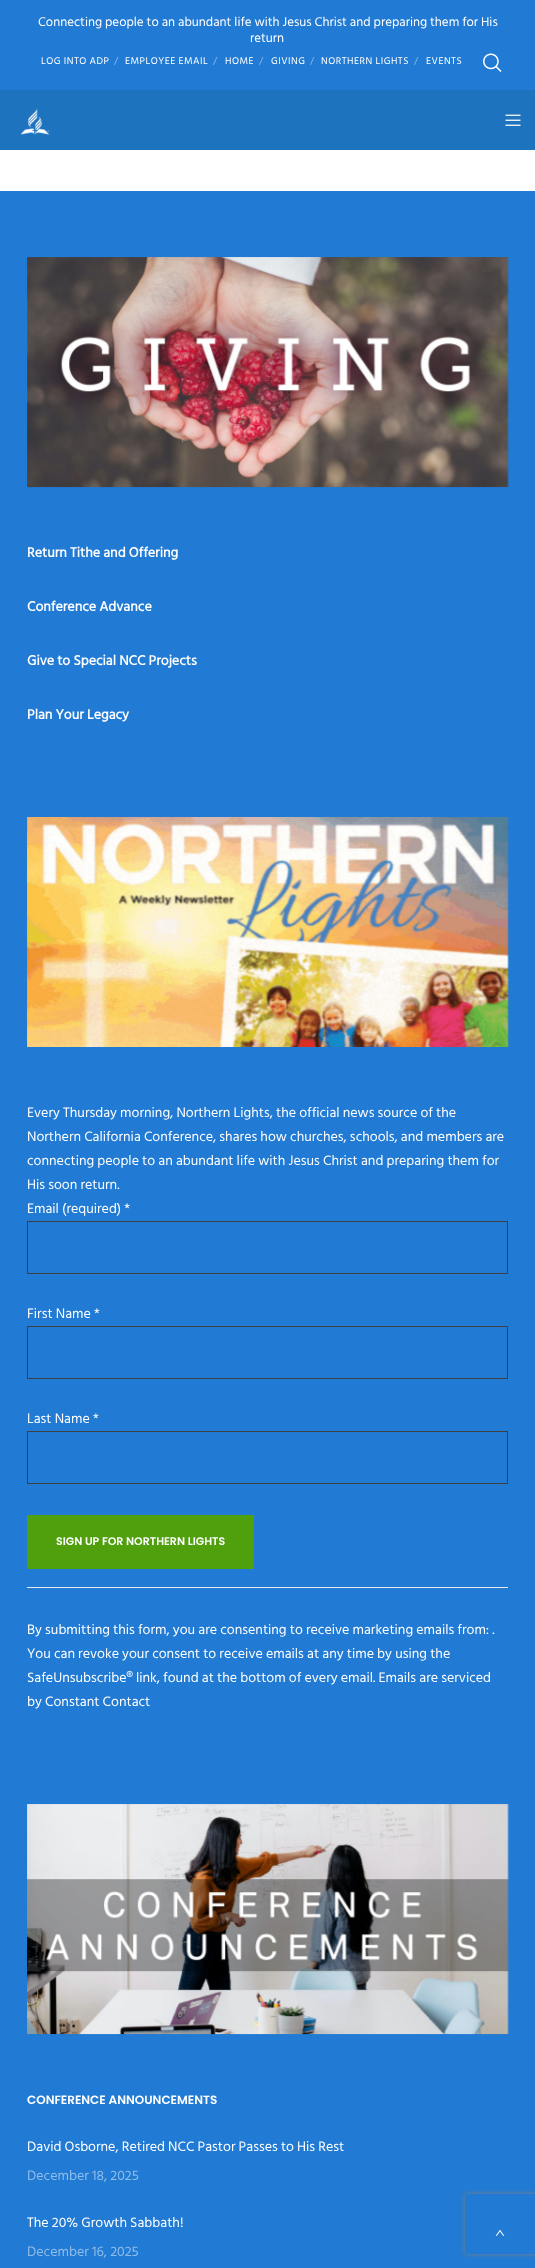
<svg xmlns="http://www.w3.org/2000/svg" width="535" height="2268">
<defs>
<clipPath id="clip1"><path d="M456 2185h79v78h-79zm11 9h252c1 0 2 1 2 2v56c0 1-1 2-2 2h-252c-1 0-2-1-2-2v-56c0-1 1-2 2-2z" clip-rule="evenodd"/></clipPath>
</defs>
<rect width="100%" height="100%" fill="#fff"/>
<rect width="535" height="90" fill="#217ad3"/>
<text x="38" y="26" style="font-family:Hind Siliguri;font-size:13px;fill:#fff">Connecting people to an abundant life with Jesus Christ and preparing them for His</text>
<text x="250" y="42" style="font-family:Hind Siliguri;font-size:13px;fill:#fff">return</text>
<text x="41" y="64" style="font-family:Hind Siliguri;font-size:10px;letter-spacing:0.5px;fill:#fff">LOG INTO ADP</text>
<text x="114" y="64" style="font-family:Hind Siliguri;font-size:10px;letter-spacing:0.5px;fill:#90bde9">/</text>
<text x="125" y="64" style="font-family:Hind Siliguri;font-size:10px;letter-spacing:0.5px;fill:#fff">EMPLOYEE EMAIL</text>
<text x="213" y="64" style="font-family:Hind Siliguri;font-size:10px;letter-spacing:0.5px;fill:#90bde9">/</text>
<text x="225" y="64" style="font-family:Hind Siliguri;font-size:10px;letter-spacing:0.5px;fill:#fff">HOME</text>
<text x="259" y="64" style="font-family:Hind Siliguri;font-size:10px;letter-spacing:0.5px;fill:#90bde9">/</text>
<text x="271" y="64" style="font-family:Hind Siliguri;font-size:10px;letter-spacing:0.5px;fill:#fff">GIVING</text>
<text x="310" y="64" style="font-family:Hind Siliguri;font-size:10px;letter-spacing:0.5px;fill:#90bde9">/</text>
<text x="321" y="64" style="font-family:Hind Siliguri;font-size:10px;letter-spacing:0.5px;fill:#fff">NORTHERN LIGHTS</text>
<text x="414" y="64" style="font-family:Hind Siliguri;font-size:10px;letter-spacing:0.5px;fill:#90bde9">/</text>
<text x="426" y="64" style="font-family:Hind Siliguri;font-size:10px;letter-spacing:0.5px;fill:#fff">EVENTS</text>
<image x="483" y="53" width="19" height="19" href="media/1.png"/>
<rect y="90" width="535" height="60" fill="#1e73be"/>
<image x="20" y="109" width="30" height="26" href="media/2.png"/>
<image x="505" y="114" width="16" height="12" href="media/3.png"/>
<rect y="191" width="535" height="2077" fill="#217ad3"/>
<image x="27" y="257" width="482" height="231" href="media/4.png"/>
<text x="27" y="557" style="font-family:Hind Siliguri;font-size:14px;font-weight:bold;fill:#fff">Return Tithe and Offering</text>
<text x="27" y="611" style="font-family:Hind Siliguri;font-size:14px;font-weight:bold;fill:#fff">Conference Advance</text>
<text x="27" y="665" style="font-family:Hind Siliguri;font-size:14px;font-weight:bold;fill:#fff">Give to Special NCC Projects</text>
<text x="27" y="719" style="font-family:Hind Siliguri;font-size:14px;font-weight:bold;fill:#fff">Plan Your Legacy</text>
<image x="27" y="817" width="482" height="230" href="media/5.png"/>
<text x="27" y="1117" style="font-family:Hind Siliguri;font-size:14px;fill:#fff">Every Thursday morning, Northern Lights, the official news source of the</text>
<text x="27" y="1141" style="font-family:Hind Siliguri;font-size:14px;fill:#fff">Northern California Conference, shares how churches, schools, and members are</text>
<text x="27" y="1165" style="font-family:Hind Siliguri;font-size:14px;fill:#fff">connecting people to an abundant life with Jesus Christ and preparing them for</text>
<text x="27" y="1189" style="font-family:Hind Siliguri;font-size:14px;fill:#fff">His soon return.</text>
<text x="27" y="1213" style="font-family:Hind Siliguri;font-size:14px;fill:#fff">Email (required) *</text>
<rect x="27.5" y="1221.5" width="480" height="52" fill="none" stroke="#3e3f3f"/>
<text x="27" y="1318" style="font-family:Hind Siliguri;font-size:14px;fill:#fff">First Name *</text>
<rect x="27.5" y="1326.5" width="480" height="52" fill="none" stroke="#3e3f3f"/>
<text x="27" y="1423" style="font-family:Hind Siliguri;font-size:14px;fill:#fff">Last Name *</text>
<rect x="27.5" y="1431.5" width="480" height="52" fill="none" stroke="#3e3f3f"/>
<rect x="27" y="1515" width="227" height="54" fill="#50a00e"/>
<text x="56" y="1545" style="font-family:Poppins;font-size:11px;font-weight:600;fill:#fff">SIGN UP FOR NORTHERN LIGHTS</text>
<rect x="27" y="1587" width="481" height="1" fill="#e9e9e9"/>
<text x="27" y="1634" style="font-family:Hind Siliguri;font-size:14px;fill:#fff">By submitting this form, you are consenting to receive marketing emails from: .</text>
<text x="27" y="1658" style="font-family:Hind Siliguri;font-size:14px;fill:#fff">You can revoke your consent to receive emails at any time by using the</text>
<text x="27" y="1682" style="font-family:Hind Siliguri;font-size:14px;fill:#fff">SafeUnsubscribe® link, found at the bottom of every email. Emails are serviced</text>
<text x="27" y="1706" style="font-family:Hind Siliguri;font-size:14px;fill:#fff">by Constant Contact</text>
<image x="27" y="1804" width="482" height="231" href="media/6.png"/>
<text x="27" y="2104" style="font-family:Poppins;font-size:12px;font-weight:600;fill:#fff">CONFERENCE ANNOUNCEMENTS</text>
<text x="27" y="2151" style="font-family:Hind Siliguri;font-size:14px;fill:#fff">David Osborne, Retired NCC Pastor Passes to His Rest</text>
<text x="27" y="2180" style="font-family:Hind Siliguri;font-size:14px;fill:#90bde9">December 18, 2025</text>
<text x="27" y="2227" style="font-family:Hind Siliguri;font-size:14px;fill:#fff">The 20% Growth Sabbath!</text>
<text x="27" y="2256" style="font-family:Hind Siliguri;font-size:14px;fill:#90bde9">December 16, 2025</text>
<g clip-path="url(#clip1)">
<rect x="465" y="2194" width="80" height="60" rx="2" fill="#808080" filter="blur(2.5px)"/>
</g>
<image x="495" y="2229" width="10" height="7" href="media/7.png"/>
</svg>
